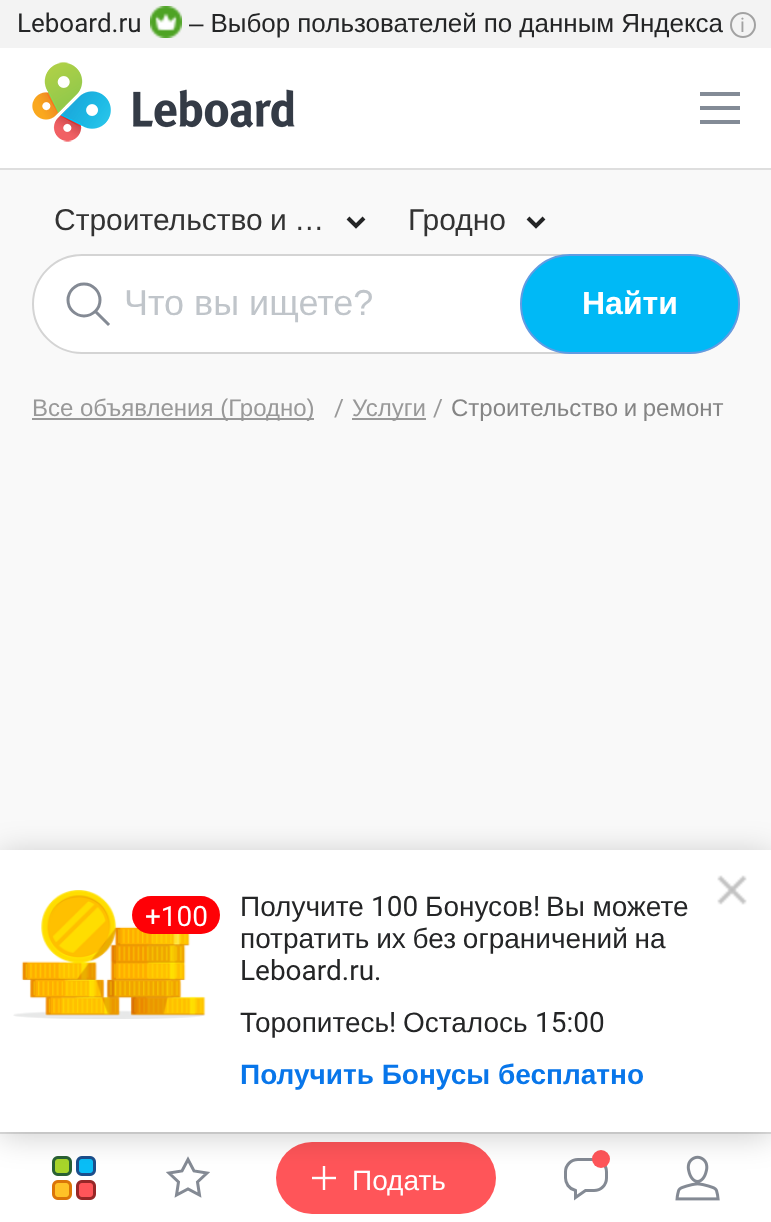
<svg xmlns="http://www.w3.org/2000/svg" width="771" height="1222">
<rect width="100%" height="100%" fill="#f9f9f9"/>
<rect width="771" height="48" fill="#f3f3f3"/>
<text x="17" y="32" style="font-family:Roboto;font-size:26px;fill:#242526">Leboard.ru</text>
<image x="150" y="6" width="32" height="32" href="media/1.png"/>
<text x="189" y="32" word-spacing="-0.25" style="font-family:Liberation Sans;font-size:26px;fill:#242526">– Выбор пользователей по данным Яндекса</text>
<circle cx="743" cy="25" r="12" fill="none" stroke="#a2a2a2" stroke-width="2"/>
<text x="740" y="32" style="font-family:Roboto;font-size:20px;fill:#a2a2a2">i</text>
<text x="54" y="230" word-spacing="-1" style="font-family:Liberation Sans;font-size:30px;fill:#333">Строительство и …</text>
<path d="M348 218l8 8l8-8" fill="none" stroke="#242526" stroke-width="4"/>
<text x="408" y="230" style="font-family:Liberation Sans;font-size:30px;fill:#333">Гродно</text>
<path d="M528 218l8 8l8-8" fill="none" stroke="#242526" stroke-width="4"/>
<rect x="33" y="255" width="706" height="98" rx="49" fill="#fff" stroke="#d4d4d4" stroke-width="2"/>
<circle cx="84" cy="300" r="16" fill="none" stroke="#848a94" stroke-width="3"/>
<path d="M96 312l12 12" fill="none" stroke="#848a94" stroke-width="3" stroke-linecap="square"/>
<text x="124" y="315" style="font-family:Liberation Sans;font-size:36px;fill:#c0c5ca">Что вы ищете?</text>
<rect x="521" y="255" width="218" height="98" rx="49" fill="#00b9f6" stroke="#619be2" stroke-width="2"/>
<text x="582" y="314" style="font-family:Liberation Sans;font-size:32px;font-weight:bold;fill:#fff">Найти</text>
<rect x="32" y="418" width="282" height="2" fill="#999"/>
<text x="32" y="416" style="font-family:Liberation Sans;font-size:24px;fill:#999">Все объявления (Гродно)</text>
<text x="334" y="416" style="font-family:Roboto;font-size:24px;fill:#999">/</text>
<rect x="352" y="418" width="74" height="2" fill="#999"/>
<text x="352" y="416" style="font-family:Liberation Sans;font-size:24px;fill:#999">Услуги</text>
<text x="433" y="416" style="font-family:Roboto;font-size:24px;fill:#999">/</text>
<text x="451" y="416" word-spacing="-1" style="font-family:Liberation Sans;font-size:24px;fill:#858585">Строительство и ремонт</text>
<rect y="48" width="771" height="120" fill="#fff"/>
<rect y="168" width="771" height="2" fill="#dedede"/>
<image x="32" y="62" width="263" height="80" href="media/2.png"/>
<rect y="1134" width="771" height="88" fill="#fff"/>
<rect y="1132" width="771" height="2" fill="#e1e1e1"/>
<image x="52" y="1156" width="44" height="44" href="media/6.png"/>
<path d="M199.5 1195l-2-13l9.5-9l-13-2l-6-11.5l-6 11.5l-13 2l9.5 9l-2 13l11.5-6z" fill="none" stroke="#848a94" stroke-width="3"/>
<rect x="276" y="1142" width="220" height="72" rx="36" fill="#ff5559"/>
<image x="312" y="1166" width="24" height="24" href="media/7.png"/>
<path d="M575.5 1197.5l10-7h8.5c7 0 12.5-5.5 12.5-12.5v-6c0-7-5.5-12.5-12.5-12.5h-16c-7 0-12.5 5.5-12.5 12.5v6c0 5.5 3.5 10.5 9 12l1 .5z" fill="none" stroke="#848a94" stroke-width="3"/>
<circle cx="601" cy="1159" r="9" fill="#ff5559"/>
<image x="675" y="1155" width="45" height="46" href="media/8.png"/>
<rect y="854" width="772" height="282" fill="#00000033" filter="blur(16px)"/>
<rect y="850" width="771" height="282" fill="#fff"/>
<image x="717" y="875" width="30" height="30" href="media/3.png"/>
<image x="13" y="890" width="193" height="129" href="media/4.png"/>
<rect x="132" y="896" width="88" height="38" rx="19" fill="#ff0006"/>
<text x="145" y="926" style="font-family:Roboto;font-size:28px;fill:#fff">+100</text>
<text x="240" y="916" style="font-family:Liberation Sans;font-size:28px;fill:#242526">Получите</text>
<text x="371" y="916" style="font-family:Roboto;font-size:28px;fill:#242526">100</text>
<text x="425" y="916" style="font-family:Liberation Sans;font-size:28px;fill:#242526">Бонусов</text>
<text x="533" y="916" style="font-family:Roboto;font-size:28px;fill:#242526">!</text>
<text x="546" y="916" style="font-family:Liberation Sans;font-size:28px;fill:#242526">Вы можете</text>
<text x="240" y="948" word-spacing="-1" style="font-family:Liberation Sans;font-size:28px;fill:#242526">потратить их без ограничений на</text>
<text x="240" y="980" style="font-family:Roboto;font-size:28px;fill:#242526">Leboard.ru.</text>
<text x="240" y="1032" style="font-family:Liberation Sans;font-size:28px;fill:#242526">Торопитесь</text>
<text x="389" y="1032" style="font-family:Roboto;font-size:28px;fill:#242526">!</text>
<text x="403" y="1032" style="font-family:Liberation Sans;font-size:28px;fill:#242526">Осталось</text>
<text x="535" y="1032" style="font-family:Roboto;font-size:28px;fill:#242526">15:00</text>
<text x="240" y="1084" style="font-family:Liberation Sans;font-size:28px;font-weight:bold;fill:#0876ea">Получить Бонусы бесплатно</text>
<image x="700" y="92" width="40" height="32" href="media/5.png"/>
<text x="352" y="1190" style="font-family:Liberation Sans;font-size:28px;fill:#fff">Подать</text>
</svg>
